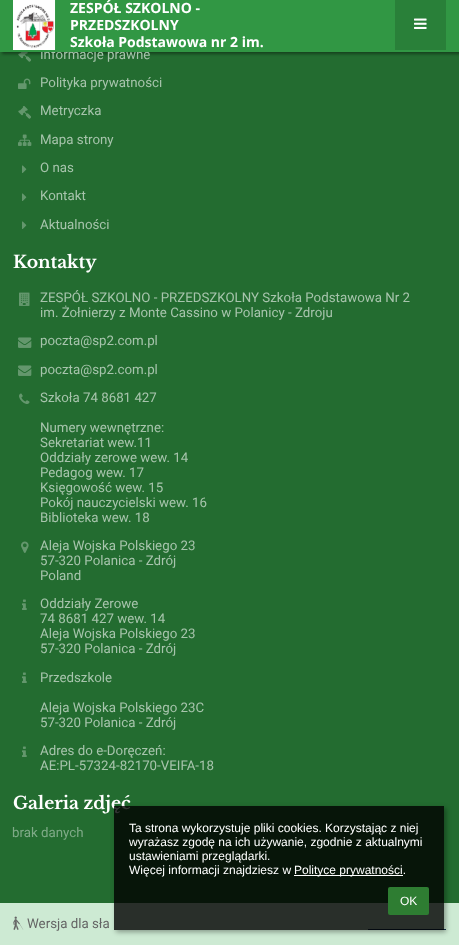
<svg xmlns="http://www.w3.org/2000/svg" width="459" height="945">
<defs>
<clipPath id="clip1"><path d="M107 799h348v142h-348zm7 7h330v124h-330z" clip-rule="evenodd"/></clipPath>
</defs>
<rect width="100%" height="100%" fill="#236c30"/>
<image x="18" y="52" width="13" height="10" href="media/3.png"/>
<rect x="2" y="2" width="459" height="52" fill="#00000066" filter="blur(1.5px)"/>
<text x="40" y="59" style="font-family:Roboto;font-size:13.3px;fill:#a7c4ac">Informacje prawne</text>
<rect width="459" height="52" fill="#319744"/>
<image x="13" y="0" width="43" height="50" href="media/1.png"/>
<text x="70" y="13" style="font-family:Open Sans;font-size:14px;font-weight:bold;fill:#fff">ZESPÓŁ SZKOLNO -</text>
<text x="70" y="30" style="font-family:Open Sans;font-size:14px;font-weight:bold;fill:#fff">PRZEDSZKOLNY</text>
<text x="70" y="47" style="font-family:Open Sans;font-size:14px;font-weight:bold;fill:#fff">Szkoła Podstawowa nr 2 im.</text>
<rect x="395" width="51" height="50" fill="#298039"/>
<image x="414" y="18" width="13" height="11" href="media/2.png"/>
<image x="18" y="78" width="13" height="11" href="media/4.png"/>
<text x="40" y="87" style="font-family:Roboto;font-size:13.3px;fill:#a7c4ac">Polityka prywatności</text>
<image x="18" y="106" width="13" height="13" href="media/5.png"/>
<text x="40" y="115" style="font-family:Roboto;font-size:13.3px;fill:#a7c4ac">Metryczka</text>
<image x="18" y="134" width="14" height="12" href="media/6.png"/>
<text x="40" y="144" style="font-family:Roboto;font-size:13.3px;fill:#a7c4ac">Mapa strony</text>
<image x="22" y="165" width="5" height="8" href="media/7.png"/>
<text x="40" y="172" style="font-family:Roboto;font-size:13.3px;fill:#a7c4ac">O nas</text>
<image x="22" y="193" width="5" height="8" href="media/7.png"/>
<text x="40" y="200" style="font-family:Roboto;font-size:13.3px;fill:#a7c4ac">Kontakt</text>
<image x="22" y="221" width="5" height="8" href="media/7.png"/>
<text x="40" y="229" style="font-family:Roboto;font-size:13.3px;fill:#a7c4ac">Aktualności</text>
<text x="13" y="268" style="font-family:Libre Baskerville;font-size:17.25px;font-weight:bold;fill:#fff">Kontakty</text>
<image x="19" y="292" width="11" height="14" href="media/8.png"/>
<text x="40" y="302" style="font-family:Roboto;font-size:13.3px;fill:#a7c4ac">ZESPÓŁ SZKOLNO - PRZEDSZKOLNY Szkoła Podstawowa Nr 2</text>
<text x="40" y="317" style="font-family:Roboto;font-size:13.3px;fill:#a7c4ac">im. Żołnierzy z Monte Cassino w Polanicy - Zdroju</text>
<image x="18" y="337" width="14" height="11" href="media/9.png"/>
<text x="40" y="345" style="font-family:Roboto;font-size:13.3px;fill:#a7c4ac">poczta@sp2.com.pl</text>
<image x="18" y="365" width="14" height="11" href="media/9.png"/>
<text x="40" y="374" style="font-family:Roboto;font-size:13.3px;fill:#a7c4ac">poczta@sp2.com.pl</text>
<image x="19" y="393" width="11" height="11" href="media/10.png"/>
<text x="40" y="402" style="font-family:Roboto;font-size:13.3px;fill:#a7c4ac">Szkoła 74 8681 427</text>
<text x="40" y="432" style="font-family:Roboto;font-size:13.3px;fill:#a7c4ac">Numery wewnętrzne:</text>
<text x="40" y="447" style="font-family:Roboto;font-size:13.3px;fill:#a7c4ac">Sekretariat wew.11</text>
<text x="40" y="462" style="font-family:Roboto;font-size:13.3px;fill:#a7c4ac">Oddziały zerowe wew. 14</text>
<text x="40" y="477" style="font-family:Roboto;font-size:13.3px;fill:#a7c4ac">Pedagog wew. 17</text>
<text x="40" y="492" style="font-family:Roboto;font-size:13.3px;fill:#a7c4ac">Księgowość wew. 15</text>
<text x="40" y="507" style="font-family:Roboto;font-size:13.3px;fill:#a7c4ac">Pokój nauczycielski wew. 16</text>
<text x="40" y="522" style="font-family:Roboto;font-size:13.3px;fill:#a7c4ac">Biblioteka wew. 18</text>
<image x="21" y="541" width="8" height="12" href="media/11.png"/>
<text x="40" y="550" style="font-family:Roboto;font-size:13.3px;fill:#a7c4ac">Aleja Wojska Polskiego 23</text>
<text x="40" y="565" style="font-family:Roboto;font-size:13.3px;fill:#a7c4ac">57-320 Polanica - Zdrój</text>
<text x="40" y="580" style="font-family:Roboto;font-size:13.3px;fill:#a7c4ac">Poland</text>
<image x="22" y="599" width="5" height="11" href="media/12.png"/>
<text x="40" y="608" style="font-family:Roboto;font-size:13.3px;fill:#a7c4ac">Oddziały Zerowe</text>
<text x="40" y="623" style="font-family:Roboto;font-size:13.3px;fill:#a7c4ac">74 8681 427 wew. 14</text>
<text x="40" y="638" style="font-family:Roboto;font-size:13.3px;fill:#a7c4ac">Aleja Wojska Polskiego 23</text>
<text x="40" y="653" style="font-family:Roboto;font-size:13.3px;fill:#a7c4ac">57-320 Polanica - Zdrój</text>
<image x="22" y="672" width="5" height="11" href="media/12.png"/>
<text x="40" y="682" style="font-family:Roboto;font-size:13.3px;fill:#a7c4ac">Przedszkole</text>
<text x="40" y="712" style="font-family:Roboto;font-size:13.3px;fill:#a7c4ac">Aleja Wojska Polskiego 23C</text>
<text x="40" y="727" style="font-family:Roboto;font-size:13.3px;fill:#a7c4ac">57-320 Polanica - Zdrój</text>
<image x="22" y="746" width="5" height="11" href="media/12.png"/>
<text x="40" y="755" style="font-family:Roboto;font-size:13.3px;fill:#a7c4ac">Adres do e-Doręczeń:</text>
<text x="40" y="770" style="font-family:Roboto;font-size:13.3px;fill:#a7c4ac">AE:PL-57324-82170-VEIFA-18</text>
<text x="13" y="809" style="font-family:Libre Baskerville;font-size:17.25px;font-weight:bold;fill:#fff">Galeria zdjęć</text>
<text x="12" y="837" style="font-family:Roboto;font-size:13.3px;fill:#7faa87">brak danych</text>
<rect y="903" width="459" height="42" fill="#cdead3"/>
<image x="13" y="916" width="11" height="14" href="media/13.png"/>
<text x="27" y="928" style="font-family:Roboto;font-size:13.3px;fill:#656565">Wersja dla sła</text>
<rect x="368" y="929" width="78" height="1" fill="#143650"/>
<g clip-path="url(#clip1)">
<rect x="116" y="808" width="330" height="124" fill="#00000059" filter="blur(2.5px)"/>
</g>
<rect x="114" y="806" width="330" height="124" fill="#000000cc"/>
<text x="129" y="832" style="font-family:Liberation Sans;font-size:12px;fill:#fff">Ta strona wykorzystuje pliki cookies. Korzystając z niej</text>
<text x="129" y="846" style="font-family:Liberation Sans;font-size:12px;fill:#fff">wyrażasz zgodę na ich używanie, zgodnie z aktualnymi</text>
<text x="129" y="860" style="font-family:Liberation Sans;font-size:12px;fill:#fff">ustawieniami przeglądarki.</text>
<text x="129" y="874" style="font-family:Liberation Sans;font-size:12px;fill:#fff">Więcej informacji znajdziesz w</text>
<rect x="294" y="875" width="109" height="1" fill="#fff"/>
<text x="294" y="874" style="font-family:Liberation Sans;font-size:12px;fill:#fff">Polityce prywatności.</text>
<rect x="388" y="887" width="41" height="28" rx="2" fill="#2e7d32"/>
<text x="400" y="905" style="font-family:Liberation Sans;font-size:12px;fill:#fff">OK</text>
</svg>
